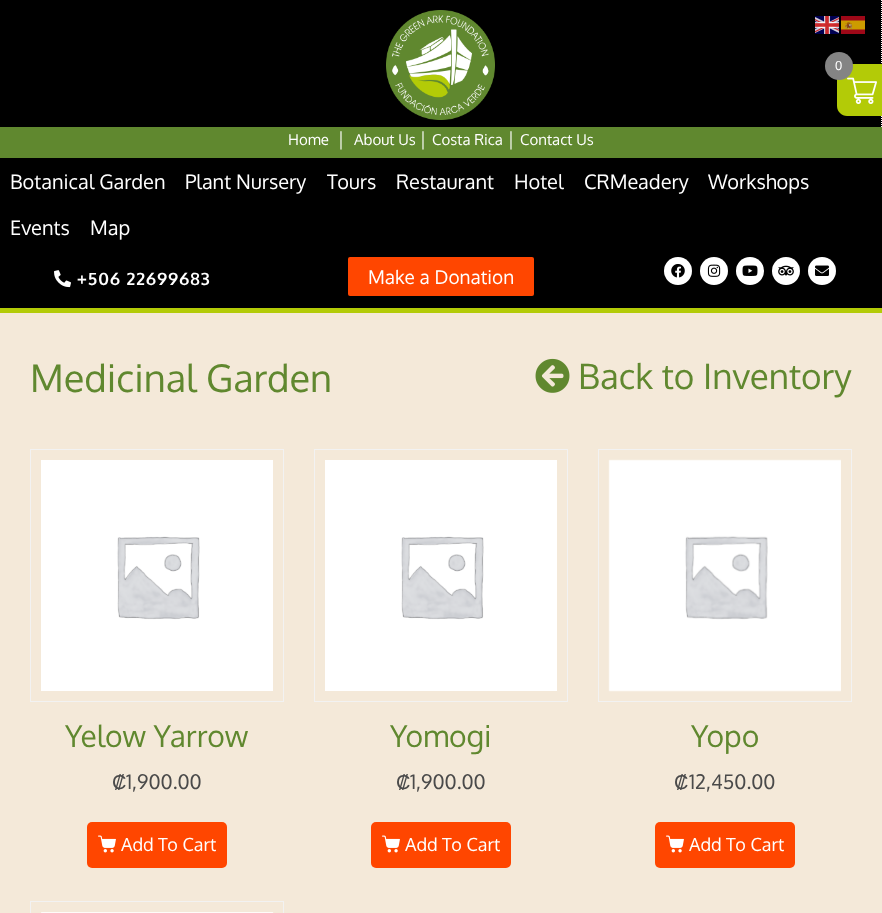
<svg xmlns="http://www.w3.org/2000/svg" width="882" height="913">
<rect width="100%" height="100%" fill="#f4e9d9"/>
<rect width="882" height="127" fill="#000"/>
<image x="815" y="16" width="24" height="18" href="media/1.png"/>
<image x="841" y="16" width="24" height="18" href="media/2.png"/>
<path d="M881.5 0v130" fill="none" stroke="#fff" stroke-dasharray="1 1"/>
<path d="M847 64h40v52h-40c-5.5 0-10-4.5-10-10v-32c0-5.5 4.5-10 10-10z" fill="#b3cb07"/>
<circle cx="839" cy="66" r="14" fill="#848484"/>
<text x="835" y="70" style="font-family:Liberation Sans;font-size:13px;fill:#fff">0</text>
<image x="847" y="77" width="30" height="27" href="media/3.png"/>
<image x="386" y="10" width="109" height="110" href="media/4.png"/>
<rect y="158" width="882" height="99" fill="#000"/>
<rect y="127" width="882" height="31" fill="#60882f"/>
<text x="288" y="145" style="font-family:Oxygen;font-size:15px;fill:#fff">Home</text>
<text x="337" y="145" style="font-family:Liberation Sans;font-size:15px;fill:#fff">│</text>
<text x="354" y="145" style="font-family:Oxygen;font-size:15px;fill:#fff">About Us</text>
<text x="419" y="145" style="font-family:Liberation Sans;font-size:15px;fill:#fff">│</text>
<text x="432" y="145" style="font-family:Oxygen;font-size:15px;fill:#fff">Costa Rica</text>
<text x="507" y="145" style="font-family:Liberation Sans;font-size:15px;fill:#fff">│</text>
<text x="520" y="145" style="font-family:Oxygen;font-size:15px;fill:#fff">Contact Us</text>
<text x="10" y="189" style="font-family:Oxygen;font-size:20px;fill:#fff">Botanical Garden</text>
<text x="185" y="189" style="font-family:Oxygen;font-size:20px;fill:#fff">Plant Nursery</text>
<text x="327" y="189" style="font-family:Oxygen;font-size:20px;fill:#fff">Tours</text>
<text x="396" y="189" style="font-family:Oxygen;font-size:20px;fill:#fff">Restaurant</text>
<text x="514" y="189" style="font-family:Oxygen;font-size:20px;fill:#fff">Hotel</text>
<text x="584" y="189" style="font-family:Oxygen;font-size:20px;fill:#fff">CRMeadery</text>
<text x="708" y="189" style="font-family:Oxygen;font-size:20px;fill:#fff">Workshops</text>
<text x="10" y="235" style="font-family:Oxygen;font-size:20px;fill:#fff">Events</text>
<text x="90" y="235" style="font-family:Oxygen;font-size:20px;fill:#fff">Map</text>
<rect y="257" width="882" height="51" fill="#000"/>
<image x="54" y="270" width="17" height="18" href="media/5.png"/>
<text x="77" y="285" style="font-family:Oxygen;font-size:17px;font-weight:bold;letter-spacing:1px;fill:#fff">+506 22699683</text>
<rect x="348" y="257" width="186" height="39" rx="2" fill="#ff4600"/>
<text x="368" y="284" style="font-family:Oxygen;font-size:19px;fill:#fff">Make a Donation</text>
<circle cx="678" cy="271" r="14" fill="#fff"/>
<image x="671" y="264" width="14" height="14" href="media/6.png"/>
<circle cx="714" cy="271" r="14" fill="#fff"/>
<image x="707" y="264" width="14" height="13" href="media/7.png"/>
<circle cx="750" cy="271" r="14" fill="#fff"/>
<image x="742" y="265" width="16" height="11" href="media/8.png"/>
<circle cx="786" cy="271" r="14" fill="#fff"/>
<image x="778" y="265" width="16" height="11" href="media/9.png"/>
<circle cx="822" cy="271" r="14" fill="#fff"/>
<image x="815" y="265" width="14" height="11" href="media/10.png"/>
<rect y="308" width="882" height="5" fill="#b3cb07"/>
<text x="30" y="392" style="font-family:Oxygen;font-size:38px;fill:#60882f">Medicinal Garden</text>
<image x="535" y="358" width="35" height="35" href="media/11.png"/>
<text x="578" y="389" style="font-family:Oxygen;font-size:35px;fill:#60882f">Back to Inventory</text>
<rect x="30.5" y="449.5" width="253" height="252" fill="none" stroke="#f2f2f2"/>
<image x="41" y="460" width="232" height="231" href="media/12.png"/>
<text x="65" y="747" style="font-family:Oxygen;font-size:30px;fill:#60882f">Yelow Yarrow</text>
<text x="112" y="789" style="font-family:Liberation Sans;font-size:20px;fill:#4a4a4a">₡</text>
<text x="126" y="789" style="font-family:Oxygen;font-size:20px;fill:#4a4a4a">1,900.00</text>
<rect x="87" y="822" width="140" height="46" rx="5" fill="#ff4600"/>
<image x="98" y="835" width="18" height="18" href="media/13.png"/>
<text x="121" y="851" style="font-family:Oxygen;font-size:18px;fill:#fff">Add To Cart</text>
<rect x="314.5" y="449.5" width="253" height="252" fill="none" stroke="#f2f2f2"/>
<image x="325" y="460" width="232" height="231" href="media/14.png"/>
<text x="390" y="747" style="font-family:Oxygen;font-size:30px;fill:#60882f">Yomogi</text>
<text x="396" y="789" style="font-family:Liberation Sans;font-size:20px;fill:#4a4a4a">₡</text>
<text x="410" y="789" style="font-family:Oxygen;font-size:20px;fill:#4a4a4a">1,900.00</text>
<rect x="371" y="822" width="140" height="46" rx="5" fill="#ff4600"/>
<image x="382" y="835" width="18" height="18" href="media/13.png"/>
<text x="405" y="851" style="font-family:Oxygen;font-size:18px;fill:#fff">Add To Cart</text>
<rect x="598.5" y="449.5" width="253" height="252" fill="none" stroke="#f2f2f2"/>
<image x="608" y="459" width="233" height="233" href="media/15.png"/>
<text x="691" y="747" style="font-family:Oxygen;font-size:30px;fill:#60882f">Yopo</text>
<text x="674" y="789" style="font-family:Liberation Sans;font-size:20px;fill:#4a4a4a">₡</text>
<text x="689" y="789" style="font-family:Oxygen;font-size:20px;fill:#4a4a4a">12,450.00</text>
<rect x="655" y="822" width="140" height="46" rx="5" fill="#ff4600"/>
<image x="666" y="835" width="18" height="18" href="media/13.png"/>
<text x="689" y="851" style="font-family:Oxygen;font-size:18px;fill:#fff">Add To Cart</text>
<rect x="30.5" y="901.5" width="253" height="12" fill="none" stroke="#f2f2f2"/>
<image x="41" y="912" width="233" height="1" href="media/16.png"/>
</svg>
